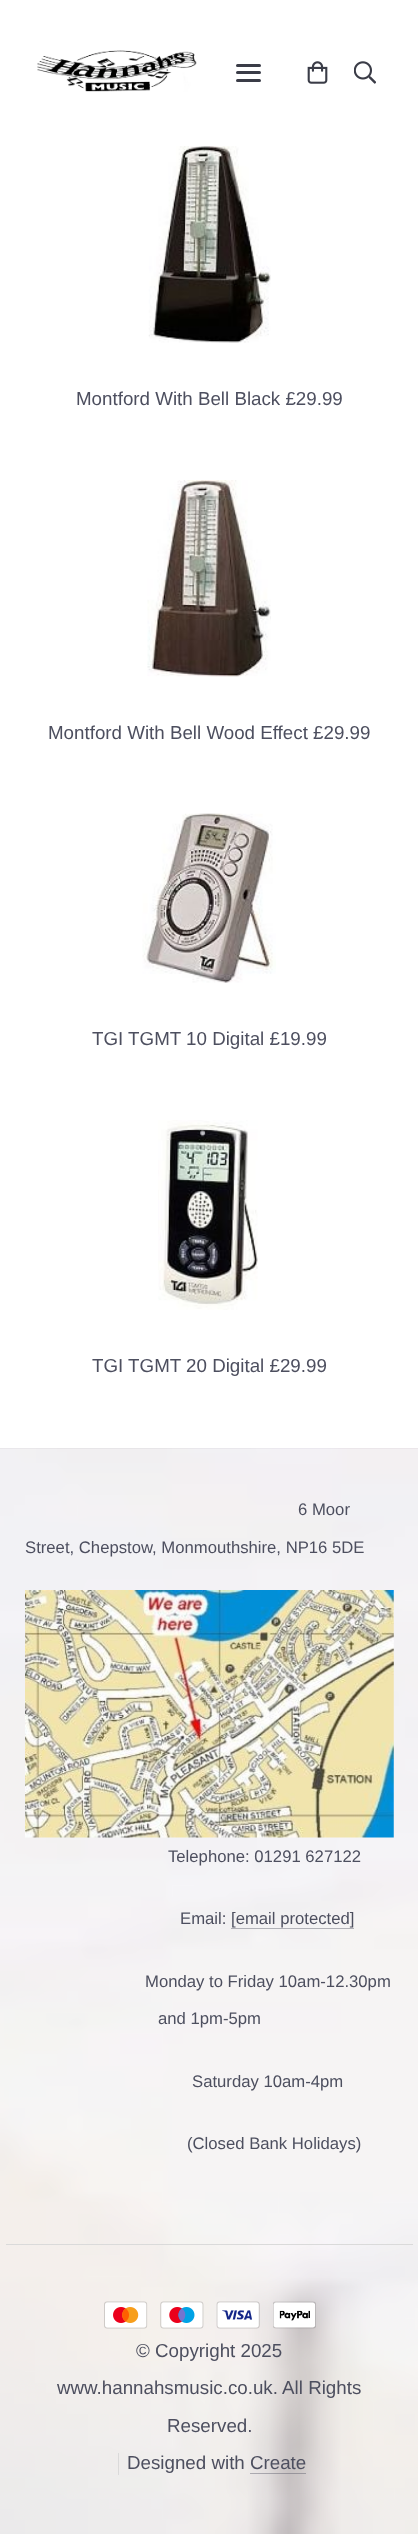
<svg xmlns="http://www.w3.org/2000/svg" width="418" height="2534">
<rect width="100%" height="100%" fill="#fff"/>
<image x="37" y="50" width="160" height="42" href="media/1.png"/>
<rect x="236" y="71" width="25" height="3" rx="1.5" fill="#3a3c47"/>
<rect x="236" y="64" width="25" height="3" rx="1.5" fill="#3a3c47"/>
<rect x="236" y="79" width="25" height="3" rx="1.5" fill="#3a3c47"/>
<image x="307" y="61" width="21" height="23" href="media/2.png"/>
<image x="354" y="61" width="22" height="23" href="media/3.png"/>
<image x="148" y="146" width="123" height="197" href="media/4.png"/>
<text x="76" y="405" style="font-family:Liberation Sans;font-size:18.75px;fill:#4d4f5f">Montford With Bell Black £29.99</text>
<image x="147" y="480" width="124" height="197" href="media/5.png"/>
<text x="48" y="739" style="font-family:Liberation Sans;font-size:18.75px;fill:#4d4f5f">Montford With Bell Wood Effect £29.99</text>
<image x="142" y="813" width="134" height="170" href="media/6.png"/>
<text x="92" y="1045" style="font-family:Liberation Sans;font-size:18.75px;fill:#4d4f5f">TGI TGMT 10 Digital £19.99</text>
<image x="158" y="1120" width="100" height="190" href="media/7.png"/>
<text x="92" y="1372" style="font-family:Liberation Sans;font-size:18.75px;fill:#4d4f5f">TGI TGMT 20 Digital £29.99</text>
<image x="0" y="1448" width="418" height="1086" href="media/8.png"/>
<text x="298" y="1515" style="font-family:Liberation Sans;font-size:16.7px;fill:#4d4f5f">6 Moor</text>
<text x="25" y="1553" style="font-family:Liberation Sans;font-size:16.7px;fill:#4d4f5f">Street, Chepstow, Monmouthshire, NP16 5DE</text>
<image x="25" y="1590" width="369" height="248" href="media/9.png"/>
<text x="168" y="1862" style="font-family:Liberation Sans;font-size:16.7px;fill:#4d4f5f">Telephone: 01291 627122</text>
<text x="180" y="1924" style="font-family:Liberation Sans;font-size:16.7px;fill:#4d4f5f">Email: [email protected]</text>
<rect x="231" y="1928" width="123" height="1" fill="#4d4f5f66"/>
<text x="145" y="1987" style="font-family:Liberation Sans;font-size:16.7px;fill:#4d4f5f">Monday to Friday 10am-12.30pm</text>
<text x="158" y="2024" style="font-family:Liberation Sans;font-size:16.7px;fill:#4d4f5f">and 1pm-5pm</text>
<text x="192" y="2087" style="font-family:Liberation Sans;font-size:16.7px;fill:#4d4f5f">Saturday 10am-4pm</text>
<text x="187" y="2149" style="font-family:Liberation Sans;font-size:16.7px;fill:#4d4f5f">(Closed Bank Holidays)</text>
<rect x="6" y="2244" width="407" height="1" fill="#dadada"/>
<image x="104" y="2301" width="44" height="28" href="media/10.png"/>
<image x="160" y="2301" width="44" height="28" href="media/11.png"/>
<image x="216" y="2301" width="44" height="28" href="media/12.png"/>
<image x="273" y="2301" width="43" height="28" href="media/13.png"/>
<text x="136" y="2357" style="font-family:Liberation Sans;font-size:18.75px;fill:#4d4f5f">© Copyright 2025</text>
<text x="57" y="2394" style="font-family:Liberation Sans;font-size:18.75px;fill:#4d4f5f">www.hannahsmusic.co.uk. All Rights</text>
<text x="167" y="2432" style="font-family:Liberation Sans;font-size:18.75px;fill:#4d4f5f">Reserved.</text>
<rect x="118" y="2453" width="1" height="22" fill="#dadada"/>
<text x="127" y="2469" style="font-family:Liberation Sans;font-size:18.75px;fill:#4d4f5f">Designed with Create</text>
<rect x="250" y="2473" width="56" height="1" fill="#4d4f5f66"/>
</svg>
